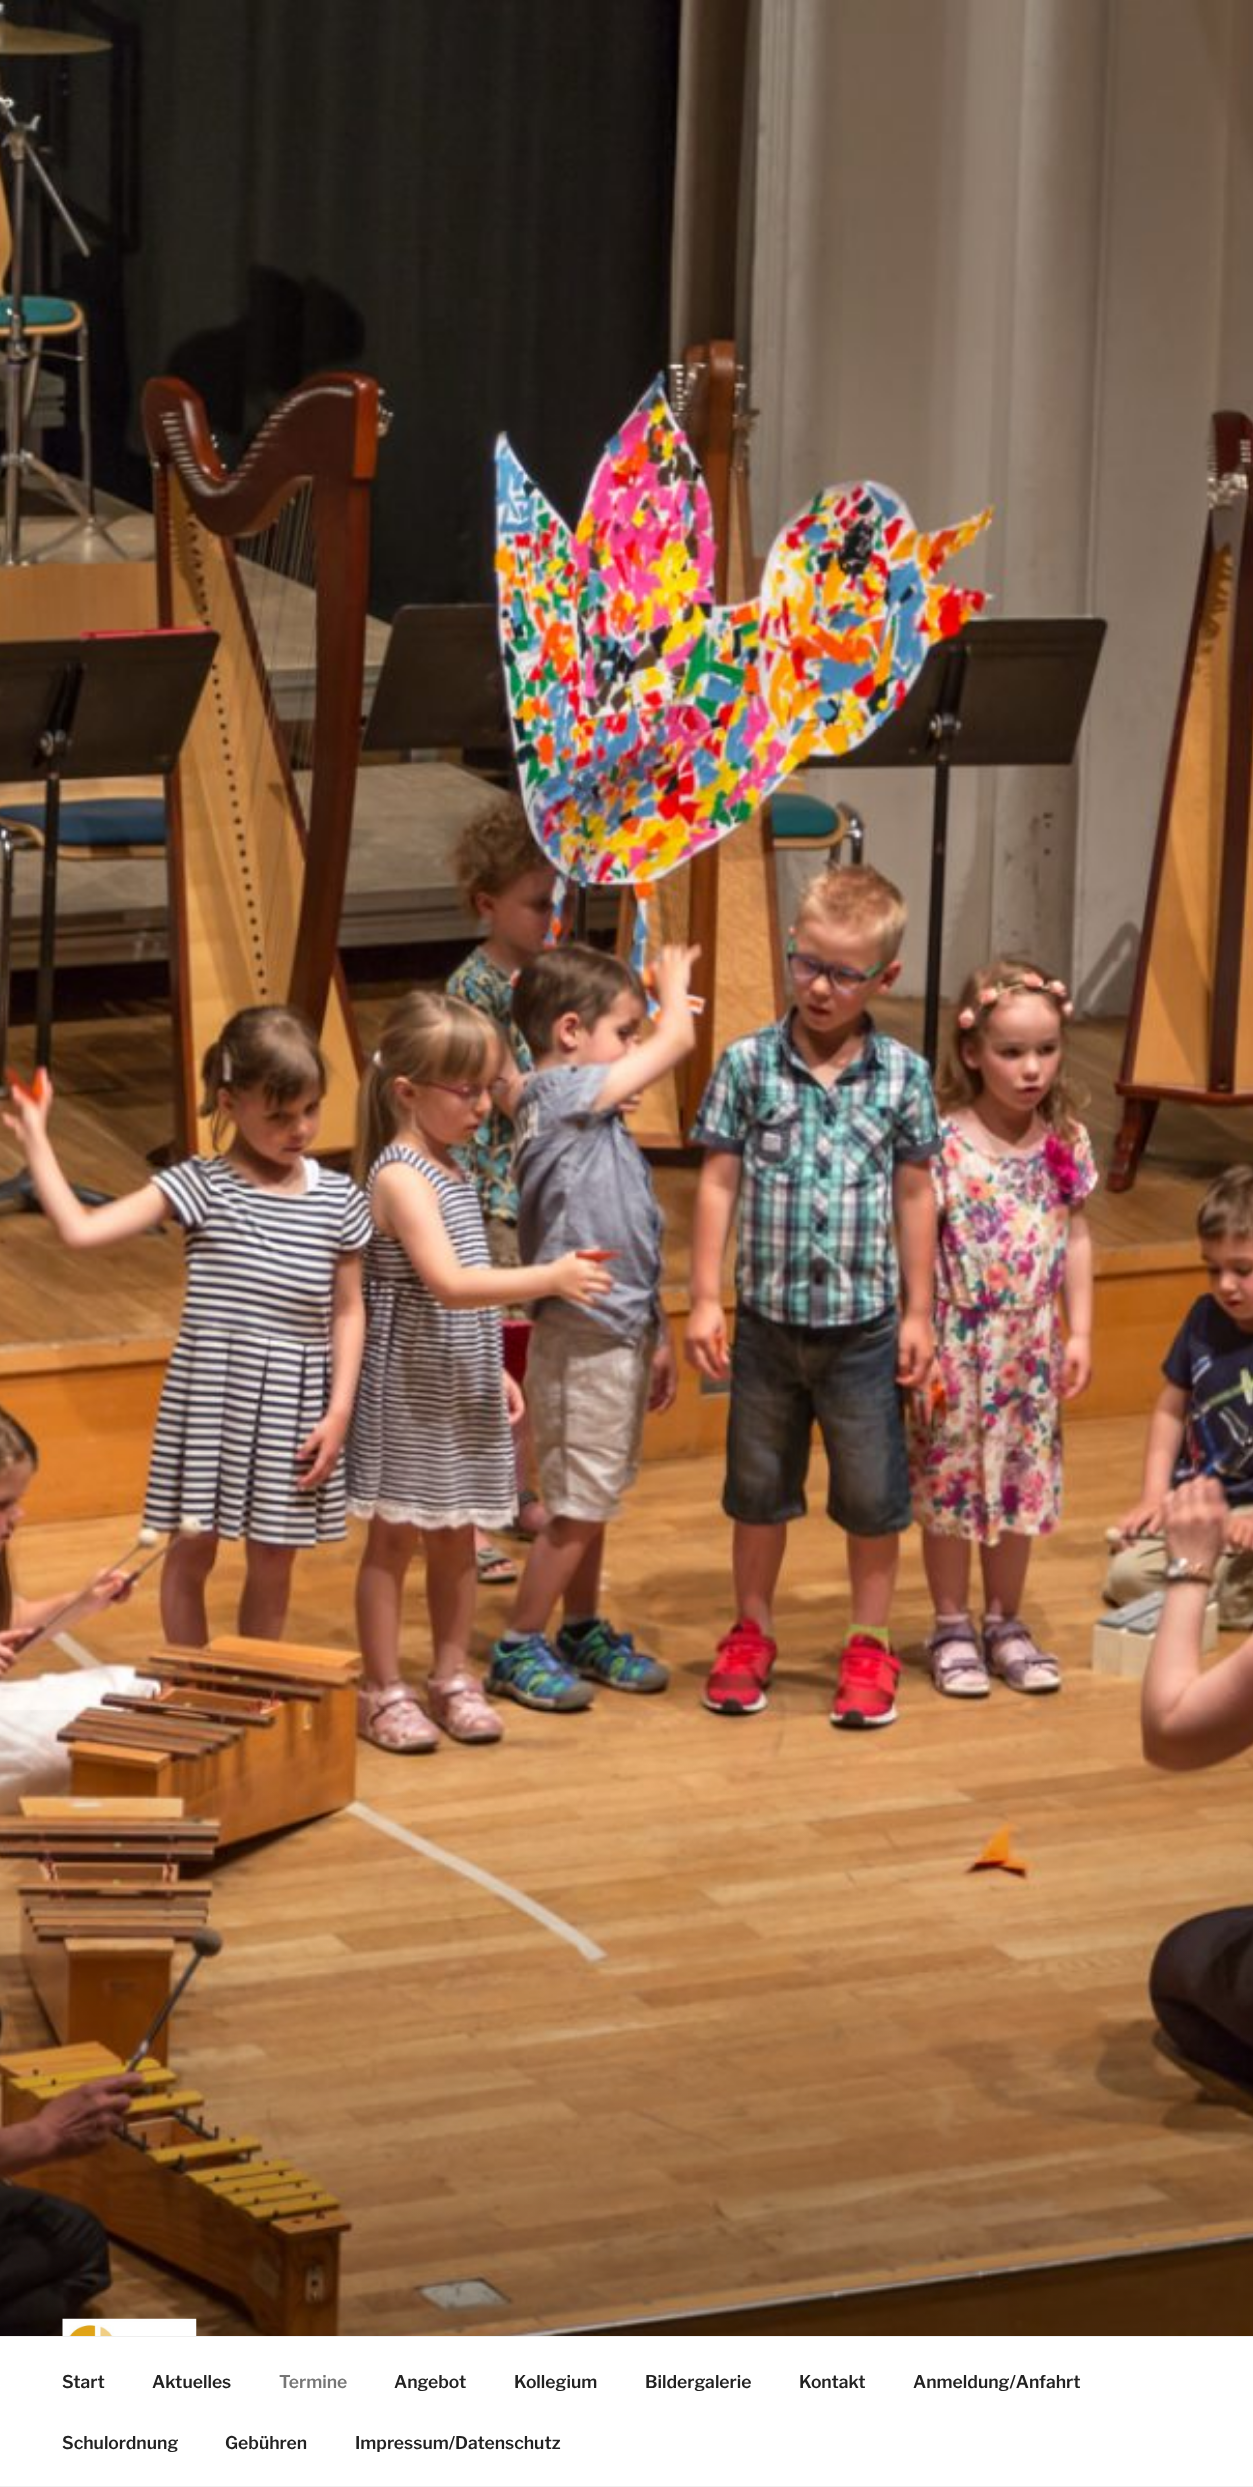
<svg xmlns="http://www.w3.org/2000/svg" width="1253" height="2487">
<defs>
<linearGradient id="g1" gradientUnits="userSpaceOnUse" x1="627" y1="1666" x2="627" y2="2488"><stop offset="0" stop-color="#000" stop-opacity="0"/><stop offset="0.75" stop-color="#000" stop-opacity="0.3"/><stop offset="1" stop-color="#000" stop-opacity="0.3"/></linearGradient>
</defs>
<rect width="100%" height="100%" fill="#fff"/>
<image x="0" y="0" width="1253" height="2336" href="media/1.png"/>
<rect y="1710" width="1253" height="626" fill="url(#g1)"/>
<image x="62" y="2318" width="135" height="18" href="media/2.png"/>
<rect y="2336" width="1253" height="1" fill="#eee"/>
<rect y="2486" width="1253" height="1" fill="#eee"/>
<text x="62" y="2388" style="font-family:Libre Franklin;font-size:17.5px;font-weight:100;fill:#222">Start</text>
<text x="152" y="2388" style="font-family:Libre Franklin;font-size:17.5px;font-weight:100;fill:#222">Aktuelles</text>
<text x="279" y="2388" style="font-family:Libre Franklin;font-size:17.5px;font-weight:100;fill:#767676">Termine</text>
<text x="394" y="2388" style="font-family:Libre Franklin;font-size:17.5px;font-weight:100;fill:#222">Angebot</text>
<text x="514" y="2388" style="font-family:Libre Franklin;font-size:17.5px;font-weight:100;fill:#222">Kollegium</text>
<text x="645" y="2388" style="font-family:Libre Franklin;font-size:17.5px;font-weight:100;fill:#222">Bildergalerie</text>
<text x="799" y="2388" style="font-family:Libre Franklin;font-size:17.5px;font-weight:100;fill:#222">Kontakt</text>
<text x="913" y="2388" style="font-family:Libre Franklin;font-size:17.5px;font-weight:100;fill:#222">Anmeldung/Anfahrt</text>
<text x="62" y="2449" style="font-family:Libre Franklin;font-size:17.5px;font-weight:100;fill:#222">Schulordnung</text>
<text x="225" y="2449" style="font-family:Libre Franklin;font-size:17.5px;font-weight:100;fill:#222">Gebühren</text>
<text x="355" y="2449" style="font-family:Libre Franklin;font-size:17.5px;font-weight:100;fill:#222">Impressum/Datenschutz</text>
</svg>
